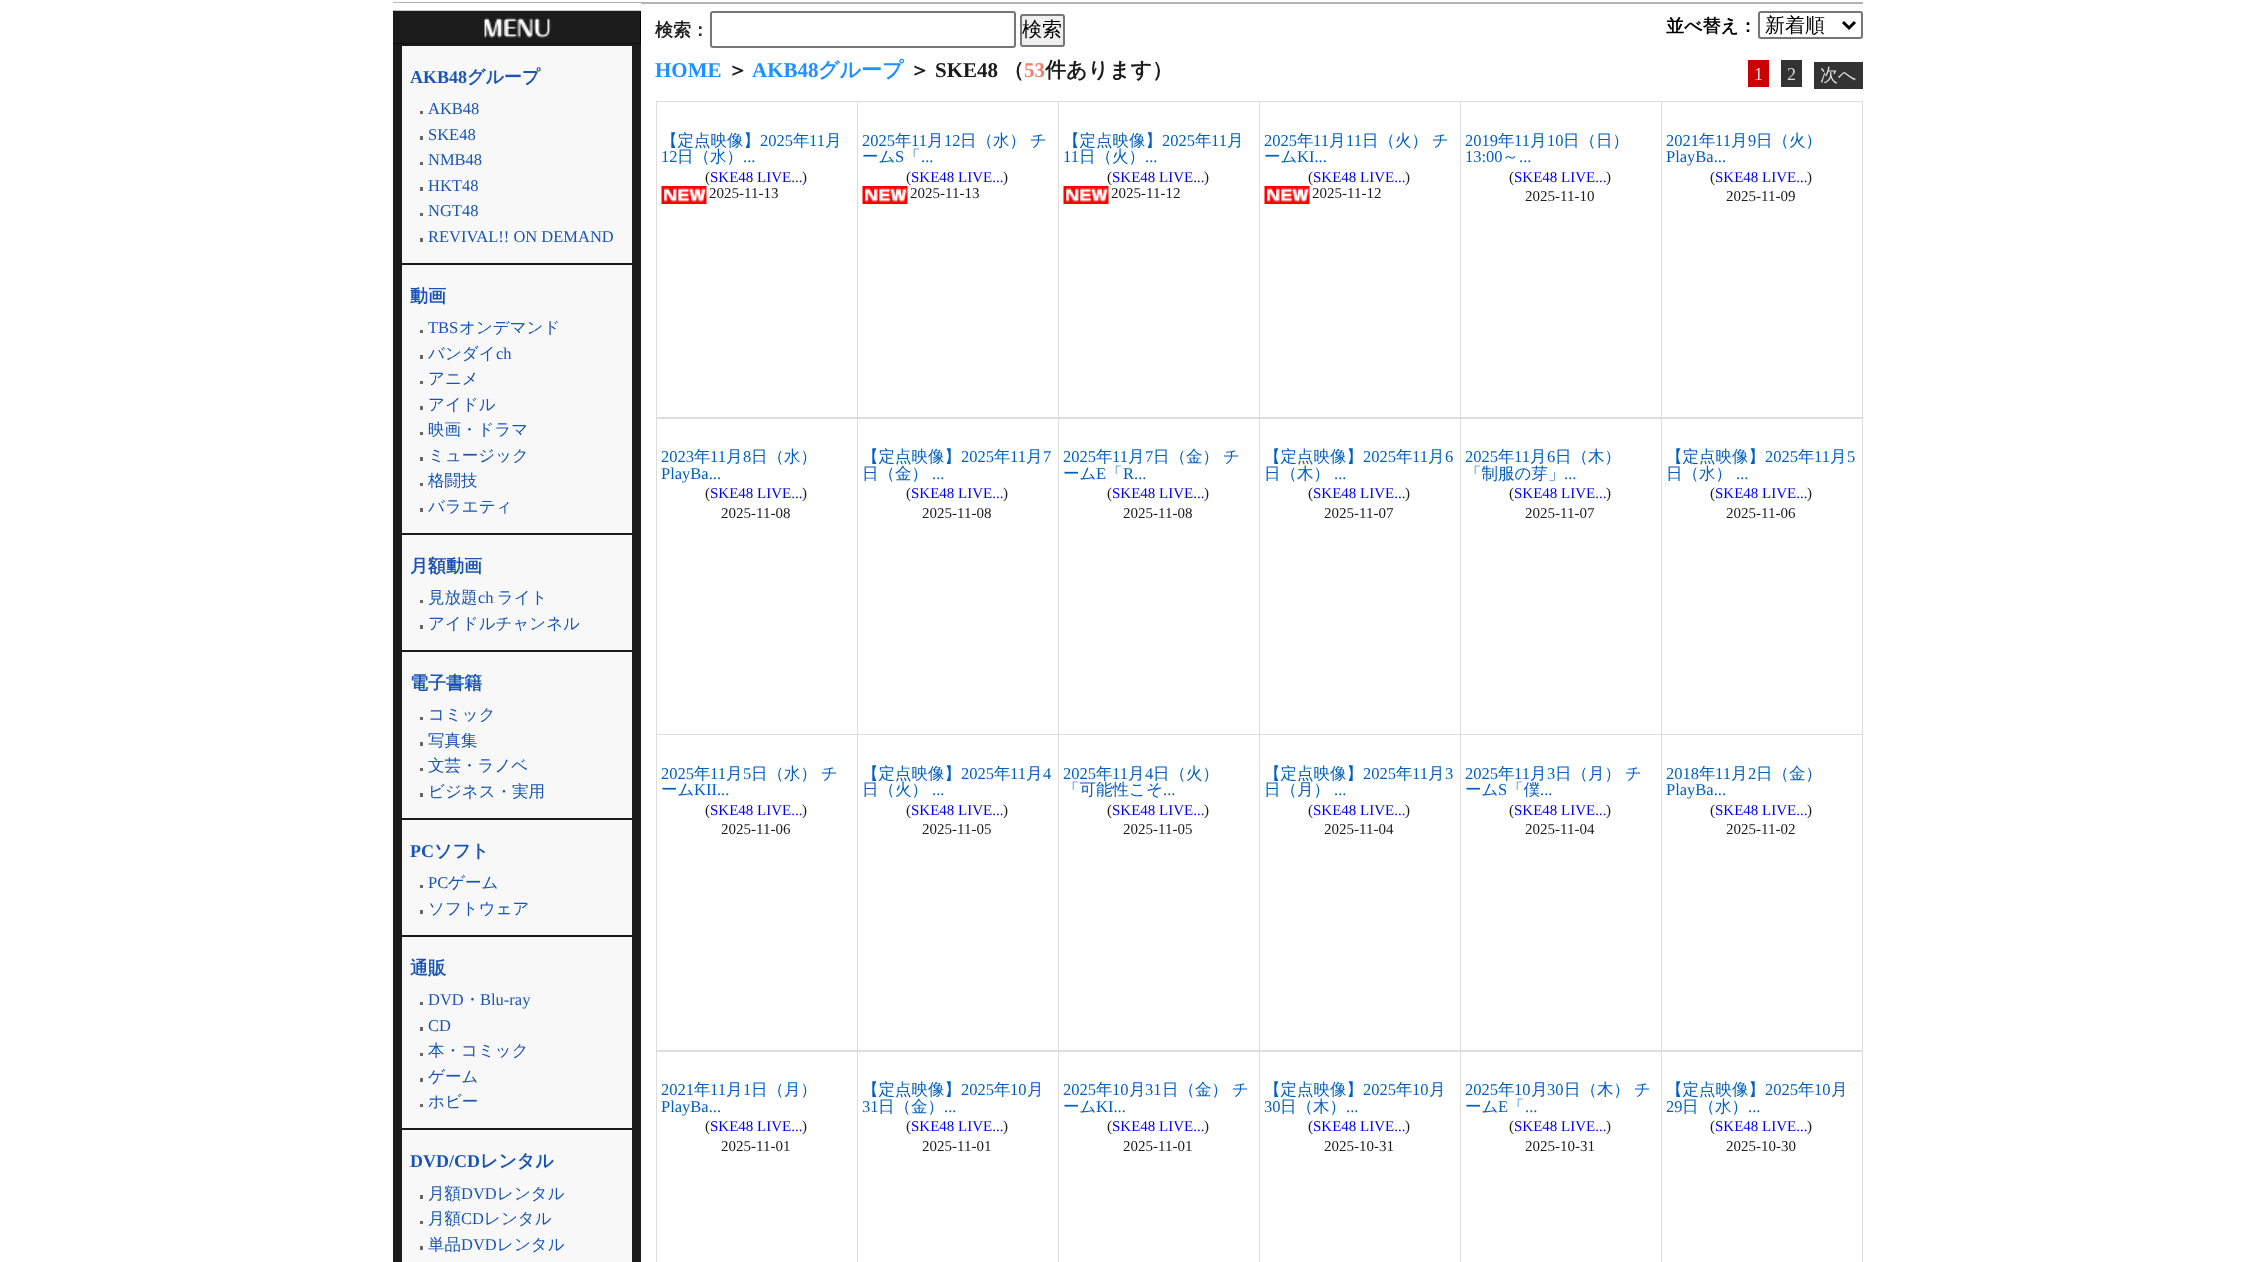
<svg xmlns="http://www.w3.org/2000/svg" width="2254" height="1262">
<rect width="100%" height="100%" fill="#fff"/>
<rect x="393" y="2" width="1470" height="2" fill="#b4b4b4"/>
<rect x="393" y="3" width="248" height="1" fill="#fff"/>
<rect x="393" y="11" width="248" height="33" fill="#000"/>
<image x="393" y="10" width="248" height="34" href="media/1.png"/>
<rect x="393" y="44" width="248" height="1218" fill="#1b1b1b"/>
<rect x="402" y="46" width="230" height="217" fill="#f8f8f8"/>
<text x="410" y="83" style="font-family:Liberation Serif;font-size:18px;font-weight:bold;fill:#1a55b3">AKB48</text>
<text x="467" y="83" style="font-family:WenQuanYi Zen Hei;font-size:18px;font-weight:bold;fill:#1a55b3">グループ</text>
<rect x="420" y="111" width="3" height="3" fill="#666"/>
<text x="428" y="114" style="font-family:Liberation Serif;font-size:16.5px;fill:#1a55b3">AKB48</text>
<rect x="420" y="136" width="3" height="4" fill="#666"/>
<text x="428" y="140" style="font-family:Liberation Serif;font-size:16.5px;fill:#1a55b3">SKE48</text>
<rect x="420" y="162" width="3" height="3" fill="#666"/>
<text x="428" y="165" style="font-family:Liberation Serif;font-size:16.5px;fill:#1a55b3">NMB48</text>
<rect x="420" y="187" width="3" height="4" fill="#666"/>
<text x="428" y="191" style="font-family:Liberation Serif;font-size:16.5px;fill:#1a55b3">HKT48</text>
<rect x="420" y="213" width="3" height="3" fill="#666"/>
<text x="428" y="216" style="font-family:Liberation Serif;font-size:16.5px;fill:#1a55b3">NGT48</text>
<rect x="420" y="238" width="3" height="4" fill="#666"/>
<text x="428" y="242" style="font-family:Liberation Serif;font-size:16.5px;fill:#1a55b3">REVIVAL!! ON DEMAND</text>
<rect x="402" y="265" width="230" height="268" fill="#f8f8f8"/>
<text x="410" y="302" style="font-family:WenQuanYi Zen Hei;font-size:18px;font-weight:bold;fill:#1a55b3">動画</text>
<rect x="420" y="330" width="3" height="3" fill="#666"/>
<text x="428" y="333" style="font-family:Liberation Serif;font-size:16.5px;fill:#1a55b3">TBS</text>
<text x="459" y="333" style="font-family:WenQuanYi Zen Hei;font-size:16.5px;font-weight:500;fill:#1a55b3">オンデマンド</text>
<rect x="420" y="355" width="3" height="4" fill="#666"/>
<text x="428" y="359" style="font-family:WenQuanYi Zen Hei;font-size:16.5px;font-weight:500;fill:#1a55b3">バンダイ</text>
<text x="496" y="359" style="font-family:Liberation Serif;font-size:16.5px;fill:#1a55b3">ch</text>
<rect x="420" y="381" width="3" height="3" fill="#666"/>
<text x="428" y="384" style="font-family:WenQuanYi Zen Hei;font-size:16.5px;font-weight:500;fill:#1a55b3">アニメ</text>
<rect x="420" y="406" width="3" height="4" fill="#666"/>
<text x="428" y="410" style="font-family:WenQuanYi Zen Hei;font-size:16.5px;font-weight:500;fill:#1a55b3">アイドル</text>
<rect x="420" y="432" width="3" height="3" fill="#666"/>
<text x="428" y="435" style="font-family:WenQuanYi Zen Hei;font-size:16.5px;font-weight:500;fill:#1a55b3">映画・ドラマ</text>
<rect x="420" y="457" width="3" height="4" fill="#666"/>
<text x="428" y="461" style="font-family:WenQuanYi Zen Hei;font-size:16.5px;font-weight:500;fill:#1a55b3">ミュージック</text>
<rect x="420" y="483" width="3" height="3" fill="#666"/>
<text x="428" y="486" style="font-family:WenQuanYi Zen Hei;font-size:16.5px;font-weight:500;fill:#1a55b3">格闘技</text>
<rect x="420" y="508" width="3" height="4" fill="#666"/>
<text x="428" y="512" style="font-family:WenQuanYi Zen Hei;font-size:16.5px;font-weight:500;fill:#1a55b3">バラエティ</text>
<rect x="402" y="535" width="230" height="115" fill="#f8f8f8"/>
<text x="410" y="572" style="font-family:WenQuanYi Zen Hei;font-size:18px;font-weight:bold;fill:#1a55b3">月額動画</text>
<rect x="420" y="600" width="3" height="3" fill="#666"/>
<text x="428" y="603" style="font-family:WenQuanYi Zen Hei;font-size:16.5px;font-weight:500;fill:#1a55b3">見放題</text>
<text x="478" y="603" style="font-family:Liberation Serif;font-size:16.5px;fill:#1a55b3">ch</text>
<text x="497" y="603" style="font-family:WenQuanYi Zen Hei;font-size:16.5px;font-weight:500;fill:#1a55b3">ライト</text>
<rect x="420" y="625" width="3" height="4" fill="#666"/>
<text x="428" y="629" style="font-family:WenQuanYi Zen Hei;font-size:16.5px;font-weight:500;fill:#1a55b3">アイドルチャンネル</text>
<rect x="402" y="652" width="230" height="166" fill="#f8f8f8"/>
<text x="410" y="689" style="font-family:WenQuanYi Zen Hei;font-size:18px;font-weight:bold;fill:#1a55b3">電子書籍</text>
<rect x="420" y="717" width="3" height="3" fill="#666"/>
<text x="428" y="720" style="font-family:WenQuanYi Zen Hei;font-size:16.5px;font-weight:500;fill:#1a55b3">コミック</text>
<rect x="420" y="742" width="3" height="4" fill="#666"/>
<text x="428" y="746" style="font-family:WenQuanYi Zen Hei;font-size:16.5px;font-weight:500;fill:#1a55b3">写真集</text>
<rect x="420" y="768" width="3" height="3" fill="#666"/>
<text x="428" y="771" style="font-family:WenQuanYi Zen Hei;font-size:16.5px;font-weight:500;fill:#1a55b3">文芸・ラノベ</text>
<rect x="420" y="793" width="3" height="4" fill="#666"/>
<text x="428" y="797" style="font-family:WenQuanYi Zen Hei;font-size:16.5px;font-weight:500;fill:#1a55b3">ビジネス・実用</text>
<rect x="402" y="820" width="230" height="115" fill="#f8f8f8"/>
<text x="410" y="857" style="font-family:Liberation Serif;font-size:18px;font-weight:bold;fill:#1a55b3">PC</text>
<text x="434" y="857" style="font-family:WenQuanYi Zen Hei;font-size:18px;font-weight:bold;fill:#1a55b3">ソフト</text>
<rect x="420" y="885" width="3" height="3" fill="#666"/>
<text x="428" y="888" style="font-family:Liberation Serif;font-size:16.5px;fill:#1a55b3">PC</text>
<text x="448" y="888" style="font-family:WenQuanYi Zen Hei;font-size:16.5px;font-weight:500;fill:#1a55b3">ゲーム</text>
<rect x="420" y="910" width="3" height="4" fill="#666"/>
<text x="428" y="914" style="font-family:WenQuanYi Zen Hei;font-size:16.5px;font-weight:500;fill:#1a55b3">ソフトウェア</text>
<rect x="402" y="937" width="230" height="191" fill="#f8f8f8"/>
<text x="410" y="974" style="font-family:WenQuanYi Zen Hei;font-size:18px;font-weight:bold;fill:#1a55b3">通販</text>
<rect x="420" y="1002" width="3" height="3" fill="#666"/>
<text x="428" y="1005" style="font-family:Liberation Serif;font-size:16.5px;fill:#1a55b3">DVD</text>
<text x="464" y="1005" style="font-family:WenQuanYi Zen Hei;font-size:16.5px;font-weight:500;fill:#1a55b3">・</text>
<text x="480" y="1005" style="font-family:Liberation Serif;font-size:16.5px;fill:#1a55b3">Blu-ray</text>
<rect x="420" y="1027" width="3" height="4" fill="#666"/>
<text x="428" y="1031" style="font-family:Liberation Serif;font-size:16.5px;fill:#1a55b3">CD</text>
<rect x="420" y="1053" width="3" height="3" fill="#666"/>
<text x="428" y="1056" style="font-family:WenQuanYi Zen Hei;font-size:16.5px;font-weight:500;fill:#1a55b3">本・コミック</text>
<rect x="420" y="1078" width="3" height="4" fill="#666"/>
<text x="428" y="1082" style="font-family:WenQuanYi Zen Hei;font-size:16.5px;font-weight:500;fill:#1a55b3">ゲーム</text>
<rect x="420" y="1104" width="3" height="3" fill="#666"/>
<text x="428" y="1107" style="font-family:WenQuanYi Zen Hei;font-size:16.5px;font-weight:500;fill:#1a55b3">ホビー</text>
<rect x="402" y="1130" width="230" height="132" fill="#f8f8f8"/>
<text x="410" y="1167" style="font-family:Liberation Serif;font-size:18px;font-weight:bold;fill:#1a55b3">DVD/CD</text>
<text x="480" y="1167" style="font-family:WenQuanYi Zen Hei;font-size:18px;font-weight:bold;fill:#1a55b3">レンタル</text>
<rect x="420" y="1195" width="3" height="4" fill="#666"/>
<text x="428" y="1199" style="font-family:WenQuanYi Zen Hei;font-size:16.5px;font-weight:500;fill:#1a55b3">月額</text>
<text x="461" y="1199" style="font-family:Liberation Serif;font-size:16.5px;fill:#1a55b3">DVD</text>
<text x="497" y="1199" style="font-family:WenQuanYi Zen Hei;font-size:16.5px;font-weight:500;fill:#1a55b3">レンタル</text>
<rect x="420" y="1221" width="3" height="3" fill="#666"/>
<text x="428" y="1224" style="font-family:WenQuanYi Zen Hei;font-size:16.5px;font-weight:500;fill:#1a55b3">月額</text>
<text x="461" y="1224" style="font-family:Liberation Serif;font-size:16.5px;fill:#1a55b3">CD</text>
<text x="484" y="1224" style="font-family:WenQuanYi Zen Hei;font-size:16.5px;font-weight:500;fill:#1a55b3">レンタル</text>
<rect x="420" y="1246" width="3" height="4" fill="#666"/>
<text x="428" y="1250" style="font-family:WenQuanYi Zen Hei;font-size:16.5px;font-weight:500;fill:#1a55b3">単品</text>
<text x="461" y="1250" style="font-family:Liberation Serif;font-size:16.5px;fill:#1a55b3">DVD</text>
<text x="497" y="1250" style="font-family:WenQuanYi Zen Hei;font-size:16.5px;font-weight:500;fill:#1a55b3">レンタル</text>
<text x="655" y="36" style="font-family:WenQuanYi Zen Hei;font-size:18px;font-weight:bold;fill:#222">検索：</text>
<rect x="711" y="12" width="304" height="35" rx="2" fill="none" stroke="#767676" stroke-width="2"/>
<rect x="1021" y="15" width="43" height="31" rx="2" fill="#efefef" stroke="#767676" stroke-width="2"/>
<text x="1022" y="36" style="font-family:WenQuanYi Zen Hei;font-size:20px;font-weight:500;fill:#000">検索</text>
<text x="1666" y="32" style="font-family:WenQuanYi Zen Hei;font-size:18px;font-weight:bold;fill:#000">並べ替え：</text>
<rect x="1759" y="12" width="103" height="26" rx="2" fill="none" stroke="#767676" stroke-width="2"/>
<path d="M1843 22l6 6l6-6" fill="none" stroke="#000" stroke-width="3"/>
<text x="1765" y="32" style="font-family:WenQuanYi Zen Hei;font-size:20px;font-weight:500;fill:#000">新着順</text>
<text x="655" y="77" style="font-family:Liberation Serif;font-size:21px;font-weight:bold;fill:#1e90ff">HOME</text>
<text x="727" y="77" style="font-family:WenQuanYi Zen Hei;font-size:21px;font-weight:bold;fill:#1b1b1b">＞</text>
<text x="752" y="77" style="font-family:Liberation Serif;font-size:21px;font-weight:bold;fill:#1e90ff">AKB48</text>
<text x="818" y="77" style="font-family:WenQuanYi Zen Hei;font-size:21px;font-weight:bold;fill:#1e90ff">グループ</text>
<text x="909" y="77" style="font-family:WenQuanYi Zen Hei;font-size:21px;font-weight:bold;fill:#1b1b1b">＞</text>
<text x="935" y="77" style="font-family:Liberation Serif;font-size:21px;font-weight:bold;fill:#1b1b1b">SKE48</text>
<text x="1003" y="77" style="font-family:WenQuanYi Zen Hei;font-size:21px;font-weight:bold;fill:#1b1b1b">（</text>
<text x="1024" y="77" style="font-family:Liberation Serif;font-size:21px;font-weight:bold;fill:#f47c68">53</text>
<text x="1045" y="77" style="font-family:WenQuanYi Zen Hei;font-size:21px;font-weight:bold;fill:#1b1b1b">件あります）</text>
<rect x="1748" y="60" width="21" height="27" fill="#c00"/>
<text x="1754" y="80" style="font-family:Liberation Serif;font-size:18px;fill:#ddd">1</text>
<rect x="1781" y="60" width="21" height="27" fill="#333"/>
<text x="1787" y="80" style="font-family:Liberation Serif;font-size:18px;fill:#ddd">2</text>
<rect x="1814" y="62" width="49" height="27" fill="#333"/>
<text x="1820" y="81" style="font-family:WenQuanYi Zen Hei;font-size:18px;font-weight:500;fill:#ddd">次へ</text>
<rect x="656" y="101" width="1207" height="1161" fill="#ddd"/>
<rect x="657" y="102" width="200" height="315" fill="#fff"/>
<text x="661" y="146" style="font-family:WenQuanYi Zen Hei;font-size:16.5px;font-weight:500;fill:#005fc0">【定点映像】</text>
<text x="760" y="146" style="font-family:Liberation Serif;font-size:16.5px;fill:#005fc0">2025</text>
<text x="793" y="146" style="font-family:WenQuanYi Zen Hei;font-size:16.5px;font-weight:500;fill:#005fc0">年</text>
<text x="809" y="146" style="font-family:Liberation Serif;font-size:16.5px;fill:#005fc0">11</text>
<text x="825" y="146" style="font-family:WenQuanYi Zen Hei;font-size:16.5px;font-weight:500;fill:#005fc0">月</text>
<text x="661" y="162" style="font-family:Liberation Serif;font-size:16.5px;fill:#005fc0">12</text>
<text x="677" y="162" style="font-family:WenQuanYi Zen Hei;font-size:16.5px;font-weight:500;fill:#005fc0">日（水）</text>
<text x="743" y="162" style="font-family:Liberation Serif;font-size:16.5px;fill:#005fc0">...</text>
<text x="705" y="182" style="font-family:Liberation Serif;font-size:15px;fill:#1b1b1b">(</text>
<text x="710" y="182" style="font-family:Liberation Serif;font-size:15px;fill:#00e">SKE48 LIVE...</text>
<text x="802" y="182" style="font-family:Liberation Serif;font-size:15px;fill:#1b1b1b">)</text>
<image x="661" y="186" width="46" height="18" href="media/2.png"/>
<text x="709" y="198" style="font-family:Liberation Serif;font-size:15px;fill:#1b1b1b">2025-11-13</text>
<rect x="858" y="102" width="200" height="315" fill="#fff"/>
<text x="862" y="146" style="font-family:Liberation Serif;font-size:16.5px;fill:#005fc0">2025</text>
<text x="895" y="146" style="font-family:WenQuanYi Zen Hei;font-size:16.5px;font-weight:500;fill:#005fc0">年</text>
<text x="911" y="146" style="font-family:Liberation Serif;font-size:16.5px;fill:#005fc0">11</text>
<text x="927" y="146" style="font-family:WenQuanYi Zen Hei;font-size:16.5px;font-weight:500;fill:#005fc0">月</text>
<text x="944" y="146" style="font-family:Liberation Serif;font-size:16.5px;fill:#005fc0">12</text>
<text x="960" y="146" word-spacing="-1" style="font-family:WenQuanYi Zen Hei;font-size:16.5px;font-weight:500;fill:#005fc0">日（水） チ</text>
<text x="862" y="162" style="font-family:WenQuanYi Zen Hei;font-size:16.5px;font-weight:500;fill:#005fc0">ーム</text>
<text x="895" y="162" style="font-family:Liberation Serif;font-size:16.5px;fill:#005fc0">S</text>
<text x="904" y="162" style="font-family:WenQuanYi Zen Hei;font-size:16.5px;font-weight:500;fill:#005fc0">「</text>
<text x="921" y="162" style="font-family:Liberation Serif;font-size:16.5px;fill:#005fc0">...</text>
<text x="906" y="182" style="font-family:Liberation Serif;font-size:15px;fill:#1b1b1b">(</text>
<text x="911" y="182" style="font-family:Liberation Serif;font-size:15px;fill:#00e">SKE48 LIVE...</text>
<text x="1003" y="182" style="font-family:Liberation Serif;font-size:15px;fill:#1b1b1b">)</text>
<image x="862" y="186" width="46" height="18" href="media/3.png"/>
<text x="910" y="198" style="font-family:Liberation Serif;font-size:15px;fill:#1b1b1b">2025-11-13</text>
<rect x="1059" y="102" width="200" height="315" fill="#fff"/>
<text x="1063" y="146" style="font-family:WenQuanYi Zen Hei;font-size:16.5px;font-weight:500;fill:#005fc0">【定点映像】</text>
<text x="1162" y="146" style="font-family:Liberation Serif;font-size:16.5px;fill:#005fc0">2025</text>
<text x="1195" y="146" style="font-family:WenQuanYi Zen Hei;font-size:16.5px;font-weight:500;fill:#005fc0">年</text>
<text x="1211" y="146" style="font-family:Liberation Serif;font-size:16.5px;fill:#005fc0">11</text>
<text x="1227" y="146" style="font-family:WenQuanYi Zen Hei;font-size:16.5px;font-weight:500;fill:#005fc0">月</text>
<text x="1063" y="162" style="font-family:Liberation Serif;font-size:16.5px;fill:#005fc0">11</text>
<text x="1079" y="162" style="font-family:WenQuanYi Zen Hei;font-size:16.5px;font-weight:500;fill:#005fc0">日（火）</text>
<text x="1145" y="162" style="font-family:Liberation Serif;font-size:16.5px;fill:#005fc0">...</text>
<text x="1107" y="182" style="font-family:Liberation Serif;font-size:15px;fill:#1b1b1b">(</text>
<text x="1112" y="182" style="font-family:Liberation Serif;font-size:15px;fill:#00e">SKE48 LIVE...</text>
<text x="1204" y="182" style="font-family:Liberation Serif;font-size:15px;fill:#1b1b1b">)</text>
<image x="1063" y="186" width="46" height="18" href="media/3.png"/>
<text x="1111" y="198" style="font-family:Liberation Serif;font-size:15px;fill:#1b1b1b">2025-11-12</text>
<rect x="1260" y="102" width="200" height="315" fill="#fff"/>
<text x="1264" y="146" style="font-family:Liberation Serif;font-size:16.5px;fill:#005fc0">2025</text>
<text x="1297" y="146" style="font-family:WenQuanYi Zen Hei;font-size:16.5px;font-weight:500;fill:#005fc0">年</text>
<text x="1313" y="146" style="font-family:Liberation Serif;font-size:16.5px;fill:#005fc0">11</text>
<text x="1329" y="146" style="font-family:WenQuanYi Zen Hei;font-size:16.5px;font-weight:500;fill:#005fc0">月</text>
<text x="1346" y="146" style="font-family:Liberation Serif;font-size:16.5px;fill:#005fc0">11</text>
<text x="1362" y="146" word-spacing="-1" style="font-family:WenQuanYi Zen Hei;font-size:16.5px;font-weight:500;fill:#005fc0">日（火） チ</text>
<text x="1264" y="162" style="font-family:WenQuanYi Zen Hei;font-size:16.5px;font-weight:500;fill:#005fc0">ーム</text>
<text x="1297" y="162" style="font-family:Liberation Serif;font-size:16.5px;fill:#005fc0">KI...</text>
<text x="1308" y="182" style="font-family:Liberation Serif;font-size:15px;fill:#1b1b1b">(</text>
<text x="1313" y="182" style="font-family:Liberation Serif;font-size:15px;fill:#00e">SKE48 LIVE...</text>
<text x="1405" y="182" style="font-family:Liberation Serif;font-size:15px;fill:#1b1b1b">)</text>
<image x="1264" y="186" width="46" height="18" href="media/4.png"/>
<text x="1312" y="198" style="font-family:Liberation Serif;font-size:15px;fill:#1b1b1b">2025-11-12</text>
<rect x="1461" y="102" width="200" height="315" fill="#fff"/>
<text x="1465" y="146" style="font-family:Liberation Serif;font-size:16.5px;fill:#005fc0">2019</text>
<text x="1498" y="146" style="font-family:WenQuanYi Zen Hei;font-size:16.5px;font-weight:500;fill:#005fc0">年</text>
<text x="1514" y="146" style="font-family:Liberation Serif;font-size:16.5px;fill:#005fc0">11</text>
<text x="1530" y="146" style="font-family:WenQuanYi Zen Hei;font-size:16.5px;font-weight:500;fill:#005fc0">月</text>
<text x="1547" y="146" style="font-family:Liberation Serif;font-size:16.5px;fill:#005fc0">10</text>
<text x="1563" y="146" style="font-family:WenQuanYi Zen Hei;font-size:16.5px;font-weight:500;fill:#005fc0">日（日）</text>
<text x="1465" y="162" style="font-family:Liberation Serif;font-size:16.5px;fill:#005fc0">13:00</text>
<text x="1502" y="162" style="font-family:WenQuanYi Zen Hei;font-size:16.5px;font-weight:500;fill:#005fc0">～</text>
<text x="1519" y="162" style="font-family:Liberation Serif;font-size:16.5px;fill:#005fc0">...</text>
<text x="1509" y="182" style="font-family:Liberation Serif;font-size:15px;fill:#1b1b1b">(</text>
<text x="1514" y="182" style="font-family:Liberation Serif;font-size:15px;fill:#00e">SKE48 LIVE...</text>
<text x="1606" y="182" style="font-family:Liberation Serif;font-size:15px;fill:#1b1b1b">)</text>
<text x="1525" y="201" style="font-family:Liberation Serif;font-size:15px;fill:#1b1b1b">2025-11-10</text>
<rect x="1662" y="102" width="200" height="315" fill="#fff"/>
<text x="1666" y="146" style="font-family:Liberation Serif;font-size:16.5px;fill:#005fc0">2021</text>
<text x="1699" y="146" style="font-family:WenQuanYi Zen Hei;font-size:16.5px;font-weight:500;fill:#005fc0">年</text>
<text x="1715" y="146" style="font-family:Liberation Serif;font-size:16.5px;fill:#005fc0">11</text>
<text x="1731" y="146" style="font-family:WenQuanYi Zen Hei;font-size:16.5px;font-weight:500;fill:#005fc0">月</text>
<text x="1748" y="146" style="font-family:Liberation Serif;font-size:16.5px;fill:#005fc0">9</text>
<text x="1756" y="146" style="font-family:WenQuanYi Zen Hei;font-size:16.5px;font-weight:500;fill:#005fc0">日（火）</text>
<text x="1666" y="162" style="font-family:Liberation Serif;font-size:16.5px;fill:#005fc0">PlayBa...</text>
<text x="1710" y="182" style="font-family:Liberation Serif;font-size:15px;fill:#1b1b1b">(</text>
<text x="1715" y="182" style="font-family:Liberation Serif;font-size:15px;fill:#00e">SKE48 LIVE...</text>
<text x="1807" y="182" style="font-family:Liberation Serif;font-size:15px;fill:#1b1b1b">)</text>
<text x="1726" y="201" style="font-family:Liberation Serif;font-size:15px;fill:#1b1b1b">2025-11-09</text>
<rect x="657" y="419" width="200" height="315" fill="#fff"/>
<text x="661" y="462" style="font-family:Liberation Serif;font-size:16.5px;fill:#005fc0">2023</text>
<text x="694" y="462" style="font-family:WenQuanYi Zen Hei;font-size:16.5px;font-weight:500;fill:#005fc0">年</text>
<text x="710" y="462" style="font-family:Liberation Serif;font-size:16.5px;fill:#005fc0">11</text>
<text x="726" y="462" style="font-family:WenQuanYi Zen Hei;font-size:16.5px;font-weight:500;fill:#005fc0">月</text>
<text x="743" y="462" style="font-family:Liberation Serif;font-size:16.5px;fill:#005fc0">8</text>
<text x="751" y="462" style="font-family:WenQuanYi Zen Hei;font-size:16.5px;font-weight:500;fill:#005fc0">日（水）</text>
<text x="661" y="479" style="font-family:Liberation Serif;font-size:16.5px;fill:#005fc0">PlayBa...</text>
<text x="705" y="498" style="font-family:Liberation Serif;font-size:15px;fill:#1b1b1b">(</text>
<text x="710" y="498" style="font-family:Liberation Serif;font-size:15px;fill:#00e">SKE48 LIVE...</text>
<text x="802" y="498" style="font-family:Liberation Serif;font-size:15px;fill:#1b1b1b">)</text>
<text x="721" y="518" style="font-family:Liberation Serif;font-size:15px;fill:#1b1b1b">2025-11-08</text>
<rect x="858" y="419" width="200" height="315" fill="#fff"/>
<text x="862" y="462" style="font-family:WenQuanYi Zen Hei;font-size:16.5px;font-weight:500;fill:#005fc0">【定点映像】</text>
<text x="961" y="462" style="font-family:Liberation Serif;font-size:16.5px;fill:#005fc0">2025</text>
<text x="994" y="462" style="font-family:WenQuanYi Zen Hei;font-size:16.5px;font-weight:500;fill:#005fc0">年</text>
<text x="1010" y="462" style="font-family:Liberation Serif;font-size:16.5px;fill:#005fc0">11</text>
<text x="1026" y="462" style="font-family:WenQuanYi Zen Hei;font-size:16.5px;font-weight:500;fill:#005fc0">月</text>
<text x="1043" y="462" style="font-family:Liberation Serif;font-size:16.5px;fill:#005fc0">7</text>
<text x="862" y="479" style="font-family:WenQuanYi Zen Hei;font-size:16.5px;font-weight:500;fill:#005fc0">日（金）</text>
<text x="932" y="479" style="font-family:Liberation Serif;font-size:16.5px;fill:#005fc0">...</text>
<text x="906" y="498" style="font-family:Liberation Serif;font-size:15px;fill:#1b1b1b">(</text>
<text x="911" y="498" style="font-family:Liberation Serif;font-size:15px;fill:#00e">SKE48 LIVE...</text>
<text x="1003" y="498" style="font-family:Liberation Serif;font-size:15px;fill:#1b1b1b">)</text>
<text x="922" y="518" style="font-family:Liberation Serif;font-size:15px;fill:#1b1b1b">2025-11-08</text>
<rect x="1059" y="419" width="200" height="315" fill="#fff"/>
<text x="1063" y="462" style="font-family:Liberation Serif;font-size:16.5px;fill:#005fc0">2025</text>
<text x="1096" y="462" style="font-family:WenQuanYi Zen Hei;font-size:16.5px;font-weight:500;fill:#005fc0">年</text>
<text x="1112" y="462" style="font-family:Liberation Serif;font-size:16.5px;fill:#005fc0">11</text>
<text x="1128" y="462" style="font-family:WenQuanYi Zen Hei;font-size:16.5px;font-weight:500;fill:#005fc0">月</text>
<text x="1145" y="462" style="font-family:Liberation Serif;font-size:16.5px;fill:#005fc0">7</text>
<text x="1153" y="462" word-spacing="-1" style="font-family:WenQuanYi Zen Hei;font-size:16.5px;font-weight:500;fill:#005fc0">日（金） チ</text>
<text x="1063" y="479" style="font-family:WenQuanYi Zen Hei;font-size:16.5px;font-weight:500;fill:#005fc0">ーム</text>
<text x="1096" y="479" style="font-family:Liberation Serif;font-size:16.5px;fill:#005fc0">E</text>
<text x="1106" y="479" style="font-family:WenQuanYi Zen Hei;font-size:16.5px;font-weight:500;fill:#005fc0">「</text>
<text x="1123" y="479" style="font-family:Liberation Serif;font-size:16.5px;fill:#005fc0">R...</text>
<text x="1107" y="498" style="font-family:Liberation Serif;font-size:15px;fill:#1b1b1b">(</text>
<text x="1112" y="498" style="font-family:Liberation Serif;font-size:15px;fill:#00e">SKE48 LIVE...</text>
<text x="1204" y="498" style="font-family:Liberation Serif;font-size:15px;fill:#1b1b1b">)</text>
<text x="1123" y="518" style="font-family:Liberation Serif;font-size:15px;fill:#1b1b1b">2025-11-08</text>
<rect x="1260" y="419" width="200" height="315" fill="#fff"/>
<text x="1264" y="462" style="font-family:WenQuanYi Zen Hei;font-size:16.5px;font-weight:500;fill:#005fc0">【定点映像】</text>
<text x="1363" y="462" style="font-family:Liberation Serif;font-size:16.5px;fill:#005fc0">2025</text>
<text x="1396" y="462" style="font-family:WenQuanYi Zen Hei;font-size:16.5px;font-weight:500;fill:#005fc0">年</text>
<text x="1412" y="462" style="font-family:Liberation Serif;font-size:16.5px;fill:#005fc0">11</text>
<text x="1428" y="462" style="font-family:WenQuanYi Zen Hei;font-size:16.5px;font-weight:500;fill:#005fc0">月</text>
<text x="1445" y="462" style="font-family:Liberation Serif;font-size:16.5px;fill:#005fc0">6</text>
<text x="1264" y="479" style="font-family:WenQuanYi Zen Hei;font-size:16.5px;font-weight:500;fill:#005fc0">日（木）</text>
<text x="1334" y="479" style="font-family:Liberation Serif;font-size:16.5px;fill:#005fc0">...</text>
<text x="1308" y="498" style="font-family:Liberation Serif;font-size:15px;fill:#1b1b1b">(</text>
<text x="1313" y="498" style="font-family:Liberation Serif;font-size:15px;fill:#00e">SKE48 LIVE...</text>
<text x="1405" y="498" style="font-family:Liberation Serif;font-size:15px;fill:#1b1b1b">)</text>
<text x="1324" y="518" style="font-family:Liberation Serif;font-size:15px;fill:#1b1b1b">2025-11-07</text>
<rect x="1461" y="419" width="200" height="315" fill="#fff"/>
<text x="1465" y="462" style="font-family:Liberation Serif;font-size:16.5px;fill:#005fc0">2025</text>
<text x="1498" y="462" style="font-family:WenQuanYi Zen Hei;font-size:16.5px;font-weight:500;fill:#005fc0">年</text>
<text x="1514" y="462" style="font-family:Liberation Serif;font-size:16.5px;fill:#005fc0">11</text>
<text x="1530" y="462" style="font-family:WenQuanYi Zen Hei;font-size:16.5px;font-weight:500;fill:#005fc0">月</text>
<text x="1547" y="462" style="font-family:Liberation Serif;font-size:16.5px;fill:#005fc0">6</text>
<text x="1555" y="462" style="font-family:WenQuanYi Zen Hei;font-size:16.5px;font-weight:500;fill:#005fc0">日（木）</text>
<text x="1465" y="479" style="font-family:WenQuanYi Zen Hei;font-size:16.5px;font-weight:500;fill:#005fc0">「制服の芽」</text>
<text x="1564" y="479" style="font-family:Liberation Serif;font-size:16.5px;fill:#005fc0">...</text>
<text x="1509" y="498" style="font-family:Liberation Serif;font-size:15px;fill:#1b1b1b">(</text>
<text x="1514" y="498" style="font-family:Liberation Serif;font-size:15px;fill:#00e">SKE48 LIVE...</text>
<text x="1606" y="498" style="font-family:Liberation Serif;font-size:15px;fill:#1b1b1b">)</text>
<text x="1525" y="518" style="font-family:Liberation Serif;font-size:15px;fill:#1b1b1b">2025-11-07</text>
<rect x="1662" y="419" width="200" height="315" fill="#fff"/>
<text x="1666" y="462" style="font-family:WenQuanYi Zen Hei;font-size:16.5px;font-weight:500;fill:#005fc0">【定点映像】</text>
<text x="1765" y="462" style="font-family:Liberation Serif;font-size:16.5px;fill:#005fc0">2025</text>
<text x="1798" y="462" style="font-family:WenQuanYi Zen Hei;font-size:16.5px;font-weight:500;fill:#005fc0">年</text>
<text x="1814" y="462" style="font-family:Liberation Serif;font-size:16.5px;fill:#005fc0">11</text>
<text x="1830" y="462" style="font-family:WenQuanYi Zen Hei;font-size:16.5px;font-weight:500;fill:#005fc0">月</text>
<text x="1847" y="462" style="font-family:Liberation Serif;font-size:16.5px;fill:#005fc0">5</text>
<text x="1666" y="479" style="font-family:WenQuanYi Zen Hei;font-size:16.5px;font-weight:500;fill:#005fc0">日（水）</text>
<text x="1736" y="479" style="font-family:Liberation Serif;font-size:16.5px;fill:#005fc0">...</text>
<text x="1710" y="498" style="font-family:Liberation Serif;font-size:15px;fill:#1b1b1b">(</text>
<text x="1715" y="498" style="font-family:Liberation Serif;font-size:15px;fill:#00e">SKE48 LIVE...</text>
<text x="1807" y="498" style="font-family:Liberation Serif;font-size:15px;fill:#1b1b1b">)</text>
<text x="1726" y="518" style="font-family:Liberation Serif;font-size:15px;fill:#1b1b1b">2025-11-06</text>
<rect x="657" y="735" width="200" height="315" fill="#fff"/>
<text x="661" y="779" style="font-family:Liberation Serif;font-size:16.5px;fill:#005fc0">2025</text>
<text x="694" y="779" style="font-family:WenQuanYi Zen Hei;font-size:16.5px;font-weight:500;fill:#005fc0">年</text>
<text x="710" y="779" style="font-family:Liberation Serif;font-size:16.5px;fill:#005fc0">11</text>
<text x="726" y="779" style="font-family:WenQuanYi Zen Hei;font-size:16.5px;font-weight:500;fill:#005fc0">月</text>
<text x="743" y="779" style="font-family:Liberation Serif;font-size:16.5px;fill:#005fc0">5</text>
<text x="751" y="779" word-spacing="-1" style="font-family:WenQuanYi Zen Hei;font-size:16.5px;font-weight:500;fill:#005fc0">日（水） チ</text>
<text x="661" y="795" style="font-family:WenQuanYi Zen Hei;font-size:16.5px;font-weight:500;fill:#005fc0">ーム</text>
<text x="694" y="795" style="font-family:Liberation Serif;font-size:16.5px;fill:#005fc0">KII...</text>
<text x="705" y="815" style="font-family:Liberation Serif;font-size:15px;fill:#1b1b1b">(</text>
<text x="710" y="815" style="font-family:Liberation Serif;font-size:15px;fill:#00e">SKE48 LIVE...</text>
<text x="802" y="815" style="font-family:Liberation Serif;font-size:15px;fill:#1b1b1b">)</text>
<text x="721" y="834" style="font-family:Liberation Serif;font-size:15px;fill:#1b1b1b">2025-11-06</text>
<rect x="858" y="735" width="200" height="315" fill="#fff"/>
<text x="862" y="779" style="font-family:WenQuanYi Zen Hei;font-size:16.5px;font-weight:500;fill:#005fc0">【定点映像】</text>
<text x="961" y="779" style="font-family:Liberation Serif;font-size:16.5px;fill:#005fc0">2025</text>
<text x="994" y="779" style="font-family:WenQuanYi Zen Hei;font-size:16.5px;font-weight:500;fill:#005fc0">年</text>
<text x="1010" y="779" style="font-family:Liberation Serif;font-size:16.5px;fill:#005fc0">11</text>
<text x="1026" y="779" style="font-family:WenQuanYi Zen Hei;font-size:16.5px;font-weight:500;fill:#005fc0">月</text>
<text x="1043" y="779" style="font-family:Liberation Serif;font-size:16.5px;fill:#005fc0">4</text>
<text x="862" y="795" style="font-family:WenQuanYi Zen Hei;font-size:16.5px;font-weight:500;fill:#005fc0">日（火）</text>
<text x="932" y="795" style="font-family:Liberation Serif;font-size:16.5px;fill:#005fc0">...</text>
<text x="906" y="815" style="font-family:Liberation Serif;font-size:15px;fill:#1b1b1b">(</text>
<text x="911" y="815" style="font-family:Liberation Serif;font-size:15px;fill:#00e">SKE48 LIVE...</text>
<text x="1003" y="815" style="font-family:Liberation Serif;font-size:15px;fill:#1b1b1b">)</text>
<text x="922" y="834" style="font-family:Liberation Serif;font-size:15px;fill:#1b1b1b">2025-11-05</text>
<rect x="1059" y="735" width="200" height="315" fill="#fff"/>
<text x="1063" y="779" style="font-family:Liberation Serif;font-size:16.5px;fill:#005fc0">2025</text>
<text x="1096" y="779" style="font-family:WenQuanYi Zen Hei;font-size:16.5px;font-weight:500;fill:#005fc0">年</text>
<text x="1112" y="779" style="font-family:Liberation Serif;font-size:16.5px;fill:#005fc0">11</text>
<text x="1128" y="779" style="font-family:WenQuanYi Zen Hei;font-size:16.5px;font-weight:500;fill:#005fc0">月</text>
<text x="1145" y="779" style="font-family:Liberation Serif;font-size:16.5px;fill:#005fc0">4</text>
<text x="1153" y="779" style="font-family:WenQuanYi Zen Hei;font-size:16.5px;font-weight:500;fill:#005fc0">日（火）</text>
<text x="1063" y="795" style="font-family:WenQuanYi Zen Hei;font-size:16.5px;font-weight:500;fill:#005fc0">「可能性こそ</text>
<text x="1163" y="795" style="font-family:Liberation Serif;font-size:16.5px;fill:#005fc0">...</text>
<text x="1107" y="815" style="font-family:Liberation Serif;font-size:15px;fill:#1b1b1b">(</text>
<text x="1112" y="815" style="font-family:Liberation Serif;font-size:15px;fill:#00e">SKE48 LIVE...</text>
<text x="1204" y="815" style="font-family:Liberation Serif;font-size:15px;fill:#1b1b1b">)</text>
<text x="1123" y="834" style="font-family:Liberation Serif;font-size:15px;fill:#1b1b1b">2025-11-05</text>
<rect x="1260" y="735" width="200" height="315" fill="#fff"/>
<text x="1264" y="779" style="font-family:WenQuanYi Zen Hei;font-size:16.5px;font-weight:500;fill:#005fc0">【定点映像】</text>
<text x="1363" y="779" style="font-family:Liberation Serif;font-size:16.5px;fill:#005fc0">2025</text>
<text x="1396" y="779" style="font-family:WenQuanYi Zen Hei;font-size:16.5px;font-weight:500;fill:#005fc0">年</text>
<text x="1412" y="779" style="font-family:Liberation Serif;font-size:16.5px;fill:#005fc0">11</text>
<text x="1428" y="779" style="font-family:WenQuanYi Zen Hei;font-size:16.5px;font-weight:500;fill:#005fc0">月</text>
<text x="1445" y="779" style="font-family:Liberation Serif;font-size:16.5px;fill:#005fc0">3</text>
<text x="1264" y="795" style="font-family:WenQuanYi Zen Hei;font-size:16.5px;font-weight:500;fill:#005fc0">日（月）</text>
<text x="1334" y="795" style="font-family:Liberation Serif;font-size:16.5px;fill:#005fc0">...</text>
<text x="1308" y="815" style="font-family:Liberation Serif;font-size:15px;fill:#1b1b1b">(</text>
<text x="1313" y="815" style="font-family:Liberation Serif;font-size:15px;fill:#00e">SKE48 LIVE...</text>
<text x="1405" y="815" style="font-family:Liberation Serif;font-size:15px;fill:#1b1b1b">)</text>
<text x="1324" y="834" style="font-family:Liberation Serif;font-size:15px;fill:#1b1b1b">2025-11-04</text>
<rect x="1461" y="735" width="200" height="315" fill="#fff"/>
<text x="1465" y="779" style="font-family:Liberation Serif;font-size:16.5px;fill:#005fc0">2025</text>
<text x="1498" y="779" style="font-family:WenQuanYi Zen Hei;font-size:16.5px;font-weight:500;fill:#005fc0">年</text>
<text x="1514" y="779" style="font-family:Liberation Serif;font-size:16.5px;fill:#005fc0">11</text>
<text x="1530" y="779" style="font-family:WenQuanYi Zen Hei;font-size:16.5px;font-weight:500;fill:#005fc0">月</text>
<text x="1547" y="779" style="font-family:Liberation Serif;font-size:16.5px;fill:#005fc0">3</text>
<text x="1555" y="779" word-spacing="-1" style="font-family:WenQuanYi Zen Hei;font-size:16.5px;font-weight:500;fill:#005fc0">日（月） チ</text>
<text x="1465" y="795" style="font-family:WenQuanYi Zen Hei;font-size:16.5px;font-weight:500;fill:#005fc0">ーム</text>
<text x="1498" y="795" style="font-family:Liberation Serif;font-size:16.5px;fill:#005fc0">S</text>
<text x="1507" y="795" style="font-family:WenQuanYi Zen Hei;font-size:16.5px;font-weight:500;fill:#005fc0">「僕</text>
<text x="1540" y="795" style="font-family:Liberation Serif;font-size:16.5px;fill:#005fc0">...</text>
<text x="1509" y="815" style="font-family:Liberation Serif;font-size:15px;fill:#1b1b1b">(</text>
<text x="1514" y="815" style="font-family:Liberation Serif;font-size:15px;fill:#00e">SKE48 LIVE...</text>
<text x="1606" y="815" style="font-family:Liberation Serif;font-size:15px;fill:#1b1b1b">)</text>
<text x="1525" y="834" style="font-family:Liberation Serif;font-size:15px;fill:#1b1b1b">2025-11-04</text>
<rect x="1662" y="735" width="200" height="315" fill="#fff"/>
<text x="1666" y="779" style="font-family:Liberation Serif;font-size:16.5px;fill:#005fc0">2018</text>
<text x="1699" y="779" style="font-family:WenQuanYi Zen Hei;font-size:16.5px;font-weight:500;fill:#005fc0">年</text>
<text x="1715" y="779" style="font-family:Liberation Serif;font-size:16.5px;fill:#005fc0">11</text>
<text x="1731" y="779" style="font-family:WenQuanYi Zen Hei;font-size:16.5px;font-weight:500;fill:#005fc0">月</text>
<text x="1748" y="779" style="font-family:Liberation Serif;font-size:16.5px;fill:#005fc0">2</text>
<text x="1756" y="779" style="font-family:WenQuanYi Zen Hei;font-size:16.5px;font-weight:500;fill:#005fc0">日（金）</text>
<text x="1666" y="795" style="font-family:Liberation Serif;font-size:16.5px;fill:#005fc0">PlayBa...</text>
<text x="1710" y="815" style="font-family:Liberation Serif;font-size:15px;fill:#1b1b1b">(</text>
<text x="1715" y="815" style="font-family:Liberation Serif;font-size:15px;fill:#00e">SKE48 LIVE...</text>
<text x="1807" y="815" style="font-family:Liberation Serif;font-size:15px;fill:#1b1b1b">)</text>
<text x="1726" y="834" style="font-family:Liberation Serif;font-size:15px;fill:#1b1b1b">2025-11-02</text>
<rect x="657" y="1052" width="200" height="210" fill="#fff"/>
<text x="661" y="1095" style="font-family:Liberation Serif;font-size:16.5px;fill:#005fc0">2021</text>
<text x="694" y="1095" style="font-family:WenQuanYi Zen Hei;font-size:16.5px;font-weight:500;fill:#005fc0">年</text>
<text x="710" y="1095" style="font-family:Liberation Serif;font-size:16.5px;fill:#005fc0">11</text>
<text x="726" y="1095" style="font-family:WenQuanYi Zen Hei;font-size:16.5px;font-weight:500;fill:#005fc0">月</text>
<text x="743" y="1095" style="font-family:Liberation Serif;font-size:16.5px;fill:#005fc0">1</text>
<text x="751" y="1095" style="font-family:WenQuanYi Zen Hei;font-size:16.5px;font-weight:500;fill:#005fc0">日（月）</text>
<text x="661" y="1112" style="font-family:Liberation Serif;font-size:16.5px;fill:#005fc0">PlayBa...</text>
<text x="705" y="1131" style="font-family:Liberation Serif;font-size:15px;fill:#1b1b1b">(</text>
<text x="710" y="1131" style="font-family:Liberation Serif;font-size:15px;fill:#00e">SKE48 LIVE...</text>
<text x="802" y="1131" style="font-family:Liberation Serif;font-size:15px;fill:#1b1b1b">)</text>
<text x="721" y="1151" style="font-family:Liberation Serif;font-size:15px;fill:#1b1b1b">2025-11-01</text>
<rect x="858" y="1052" width="200" height="210" fill="#fff"/>
<text x="862" y="1095" style="font-family:WenQuanYi Zen Hei;font-size:16.5px;font-weight:500;fill:#005fc0">【定点映像】</text>
<text x="961" y="1095" style="font-family:Liberation Serif;font-size:16.5px;fill:#005fc0">2025</text>
<text x="994" y="1095" style="font-family:WenQuanYi Zen Hei;font-size:16.5px;font-weight:500;fill:#005fc0">年</text>
<text x="1010" y="1095" style="font-family:Liberation Serif;font-size:16.5px;fill:#005fc0">10</text>
<text x="1027" y="1095" style="font-family:WenQuanYi Zen Hei;font-size:16.5px;font-weight:500;fill:#005fc0">月</text>
<text x="862" y="1112" style="font-family:Liberation Serif;font-size:16.5px;fill:#005fc0">31</text>
<text x="878" y="1112" style="font-family:WenQuanYi Zen Hei;font-size:16.5px;font-weight:500;fill:#005fc0">日（金）</text>
<text x="944" y="1112" style="font-family:Liberation Serif;font-size:16.5px;fill:#005fc0">...</text>
<text x="906" y="1131" style="font-family:Liberation Serif;font-size:15px;fill:#1b1b1b">(</text>
<text x="911" y="1131" style="font-family:Liberation Serif;font-size:15px;fill:#00e">SKE48 LIVE...</text>
<text x="1003" y="1131" style="font-family:Liberation Serif;font-size:15px;fill:#1b1b1b">)</text>
<text x="922" y="1151" style="font-family:Liberation Serif;font-size:15px;fill:#1b1b1b">2025-11-01</text>
<rect x="1059" y="1052" width="200" height="210" fill="#fff"/>
<text x="1063" y="1095" style="font-family:Liberation Serif;font-size:16.5px;fill:#005fc0">2025</text>
<text x="1096" y="1095" style="font-family:WenQuanYi Zen Hei;font-size:16.5px;font-weight:500;fill:#005fc0">年</text>
<text x="1112" y="1095" style="font-family:Liberation Serif;font-size:16.5px;fill:#005fc0">10</text>
<text x="1129" y="1095" style="font-family:WenQuanYi Zen Hei;font-size:16.5px;font-weight:500;fill:#005fc0">月</text>
<text x="1145" y="1095" style="font-family:Liberation Serif;font-size:16.5px;fill:#005fc0">31</text>
<text x="1162" y="1095" word-spacing="-1" style="font-family:WenQuanYi Zen Hei;font-size:16.5px;font-weight:500;fill:#005fc0">日（金） チ</text>
<text x="1063" y="1112" style="font-family:WenQuanYi Zen Hei;font-size:16.5px;font-weight:500;fill:#005fc0">ーム</text>
<text x="1096" y="1112" style="font-family:Liberation Serif;font-size:16.5px;fill:#005fc0">KI...</text>
<text x="1107" y="1131" style="font-family:Liberation Serif;font-size:15px;fill:#1b1b1b">(</text>
<text x="1112" y="1131" style="font-family:Liberation Serif;font-size:15px;fill:#00e">SKE48 LIVE...</text>
<text x="1204" y="1131" style="font-family:Liberation Serif;font-size:15px;fill:#1b1b1b">)</text>
<text x="1123" y="1151" style="font-family:Liberation Serif;font-size:15px;fill:#1b1b1b">2025-11-01</text>
<rect x="1260" y="1052" width="200" height="210" fill="#fff"/>
<text x="1264" y="1095" style="font-family:WenQuanYi Zen Hei;font-size:16.5px;font-weight:500;fill:#005fc0">【定点映像】</text>
<text x="1363" y="1095" style="font-family:Liberation Serif;font-size:16.5px;fill:#005fc0">2025</text>
<text x="1396" y="1095" style="font-family:WenQuanYi Zen Hei;font-size:16.5px;font-weight:500;fill:#005fc0">年</text>
<text x="1412" y="1095" style="font-family:Liberation Serif;font-size:16.5px;fill:#005fc0">10</text>
<text x="1429" y="1095" style="font-family:WenQuanYi Zen Hei;font-size:16.5px;font-weight:500;fill:#005fc0">月</text>
<text x="1264" y="1112" style="font-family:Liberation Serif;font-size:16.5px;fill:#005fc0">30</text>
<text x="1280" y="1112" style="font-family:WenQuanYi Zen Hei;font-size:16.5px;font-weight:500;fill:#005fc0">日（木）</text>
<text x="1346" y="1112" style="font-family:Liberation Serif;font-size:16.5px;fill:#005fc0">...</text>
<text x="1308" y="1131" style="font-family:Liberation Serif;font-size:15px;fill:#1b1b1b">(</text>
<text x="1313" y="1131" style="font-family:Liberation Serif;font-size:15px;fill:#00e">SKE48 LIVE...</text>
<text x="1405" y="1131" style="font-family:Liberation Serif;font-size:15px;fill:#1b1b1b">)</text>
<text x="1324" y="1151" style="font-family:Liberation Serif;font-size:15px;fill:#1b1b1b">2025-10-31</text>
<rect x="1461" y="1052" width="200" height="210" fill="#fff"/>
<text x="1465" y="1095" style="font-family:Liberation Serif;font-size:16.5px;fill:#005fc0">2025</text>
<text x="1498" y="1095" style="font-family:WenQuanYi Zen Hei;font-size:16.5px;font-weight:500;fill:#005fc0">年</text>
<text x="1514" y="1095" style="font-family:Liberation Serif;font-size:16.5px;fill:#005fc0">10</text>
<text x="1531" y="1095" style="font-family:WenQuanYi Zen Hei;font-size:16.5px;font-weight:500;fill:#005fc0">月</text>
<text x="1547" y="1095" style="font-family:Liberation Serif;font-size:16.5px;fill:#005fc0">30</text>
<text x="1564" y="1095" word-spacing="-1" style="font-family:WenQuanYi Zen Hei;font-size:16.5px;font-weight:500;fill:#005fc0">日（木） チ</text>
<text x="1465" y="1112" style="font-family:WenQuanYi Zen Hei;font-size:16.5px;font-weight:500;fill:#005fc0">ーム</text>
<text x="1498" y="1112" style="font-family:Liberation Serif;font-size:16.5px;fill:#005fc0">E</text>
<text x="1508" y="1112" style="font-family:WenQuanYi Zen Hei;font-size:16.5px;font-weight:500;fill:#005fc0">「</text>
<text x="1525" y="1112" style="font-family:Liberation Serif;font-size:16.5px;fill:#005fc0">...</text>
<text x="1509" y="1131" style="font-family:Liberation Serif;font-size:15px;fill:#1b1b1b">(</text>
<text x="1514" y="1131" style="font-family:Liberation Serif;font-size:15px;fill:#00e">SKE48 LIVE...</text>
<text x="1606" y="1131" style="font-family:Liberation Serif;font-size:15px;fill:#1b1b1b">)</text>
<text x="1525" y="1151" style="font-family:Liberation Serif;font-size:15px;fill:#1b1b1b">2025-10-31</text>
<rect x="1662" y="1052" width="200" height="210" fill="#fff"/>
<text x="1666" y="1095" style="font-family:WenQuanYi Zen Hei;font-size:16.5px;font-weight:500;fill:#005fc0">【定点映像】</text>
<text x="1765" y="1095" style="font-family:Liberation Serif;font-size:16.5px;fill:#005fc0">2025</text>
<text x="1798" y="1095" style="font-family:WenQuanYi Zen Hei;font-size:16.5px;font-weight:500;fill:#005fc0">年</text>
<text x="1814" y="1095" style="font-family:Liberation Serif;font-size:16.5px;fill:#005fc0">10</text>
<text x="1831" y="1095" style="font-family:WenQuanYi Zen Hei;font-size:16.5px;font-weight:500;fill:#005fc0">月</text>
<text x="1666" y="1112" style="font-family:Liberation Serif;font-size:16.5px;fill:#005fc0">29</text>
<text x="1682" y="1112" style="font-family:WenQuanYi Zen Hei;font-size:16.5px;font-weight:500;fill:#005fc0">日（水）</text>
<text x="1748" y="1112" style="font-family:Liberation Serif;font-size:16.5px;fill:#005fc0">...</text>
<text x="1710" y="1131" style="font-family:Liberation Serif;font-size:15px;fill:#1b1b1b">(</text>
<text x="1715" y="1131" style="font-family:Liberation Serif;font-size:15px;fill:#00e">SKE48 LIVE...</text>
<text x="1807" y="1131" style="font-family:Liberation Serif;font-size:15px;fill:#1b1b1b">)</text>
<text x="1726" y="1151" style="font-family:Liberation Serif;font-size:15px;fill:#1b1b1b">2025-10-30</text>
</svg>
